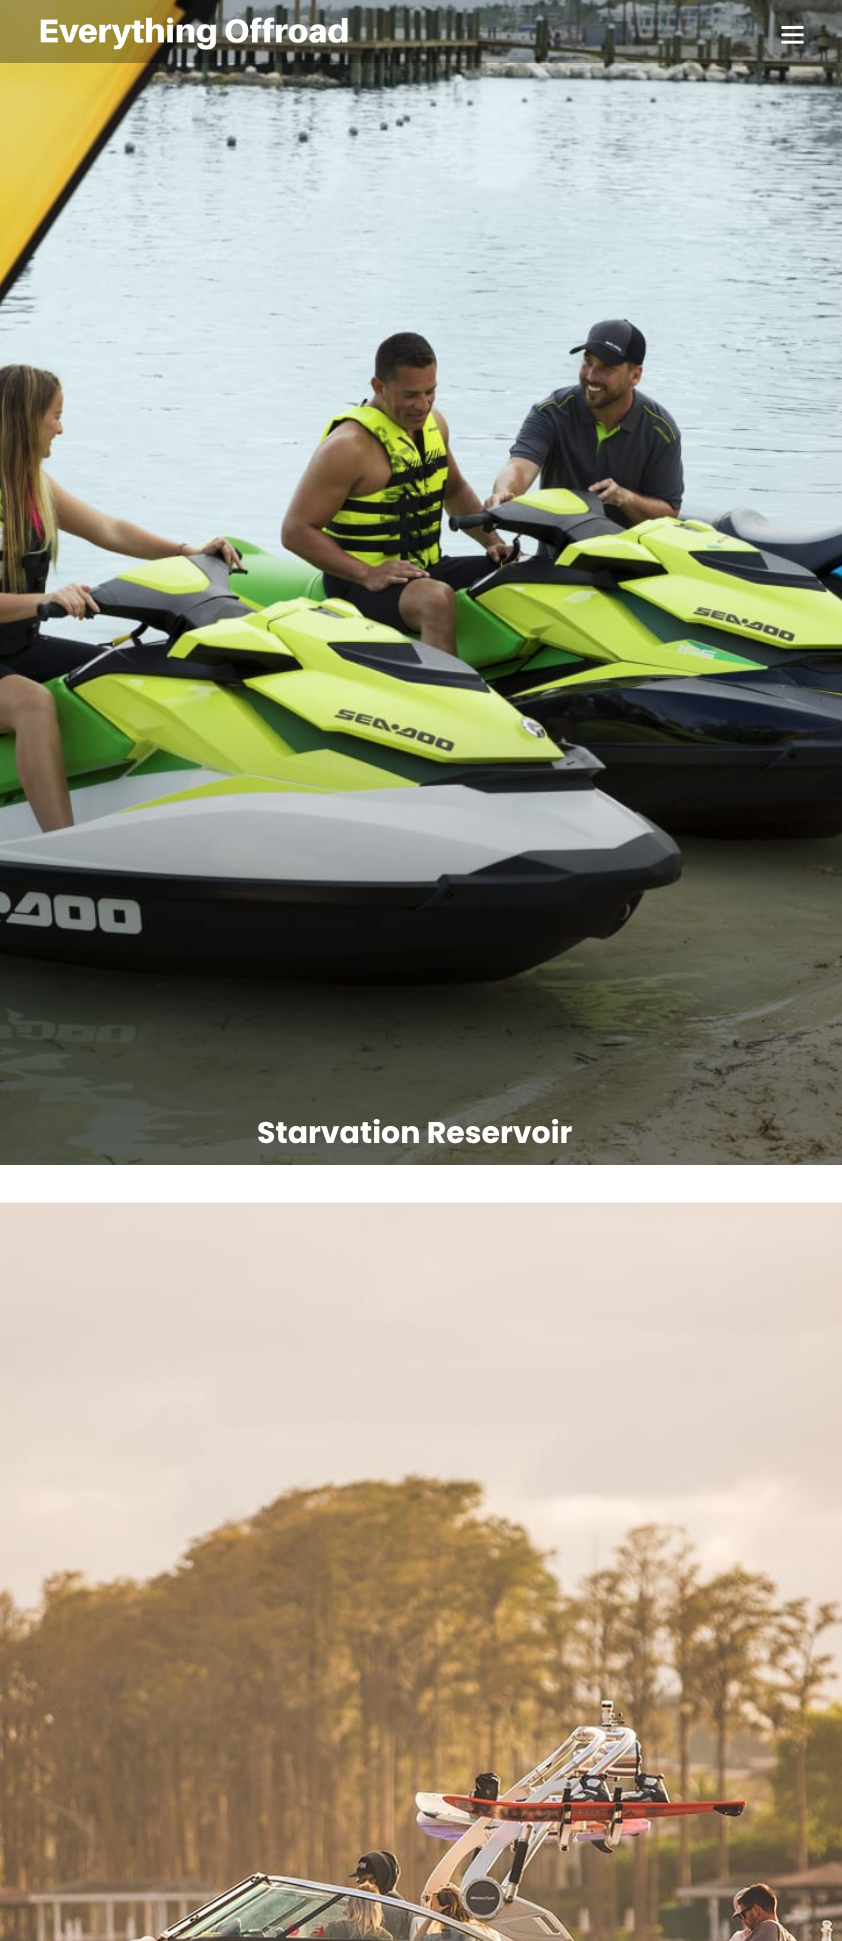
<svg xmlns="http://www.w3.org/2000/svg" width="842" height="1941">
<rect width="100%" height="100%" fill="#fff"/>
<image x="0" y="0" width="842" height="1165" href="media/3.png"/>
<rect width="842" height="63" fill="#0000004d"/>
<image x="40" y="17" width="308" height="33" href="media/1.png"/>
<image x="781" y="25" width="23" height="19" href="media/2.png"/>
<text x="257" y="1143" style="font-family:Poppins;font-size:30px;font-weight:bold;fill:#fff">Starvation Reservoir</text>
<image x="0" y="1202" width="842" height="739" href="media/4.png"/>
</svg>
